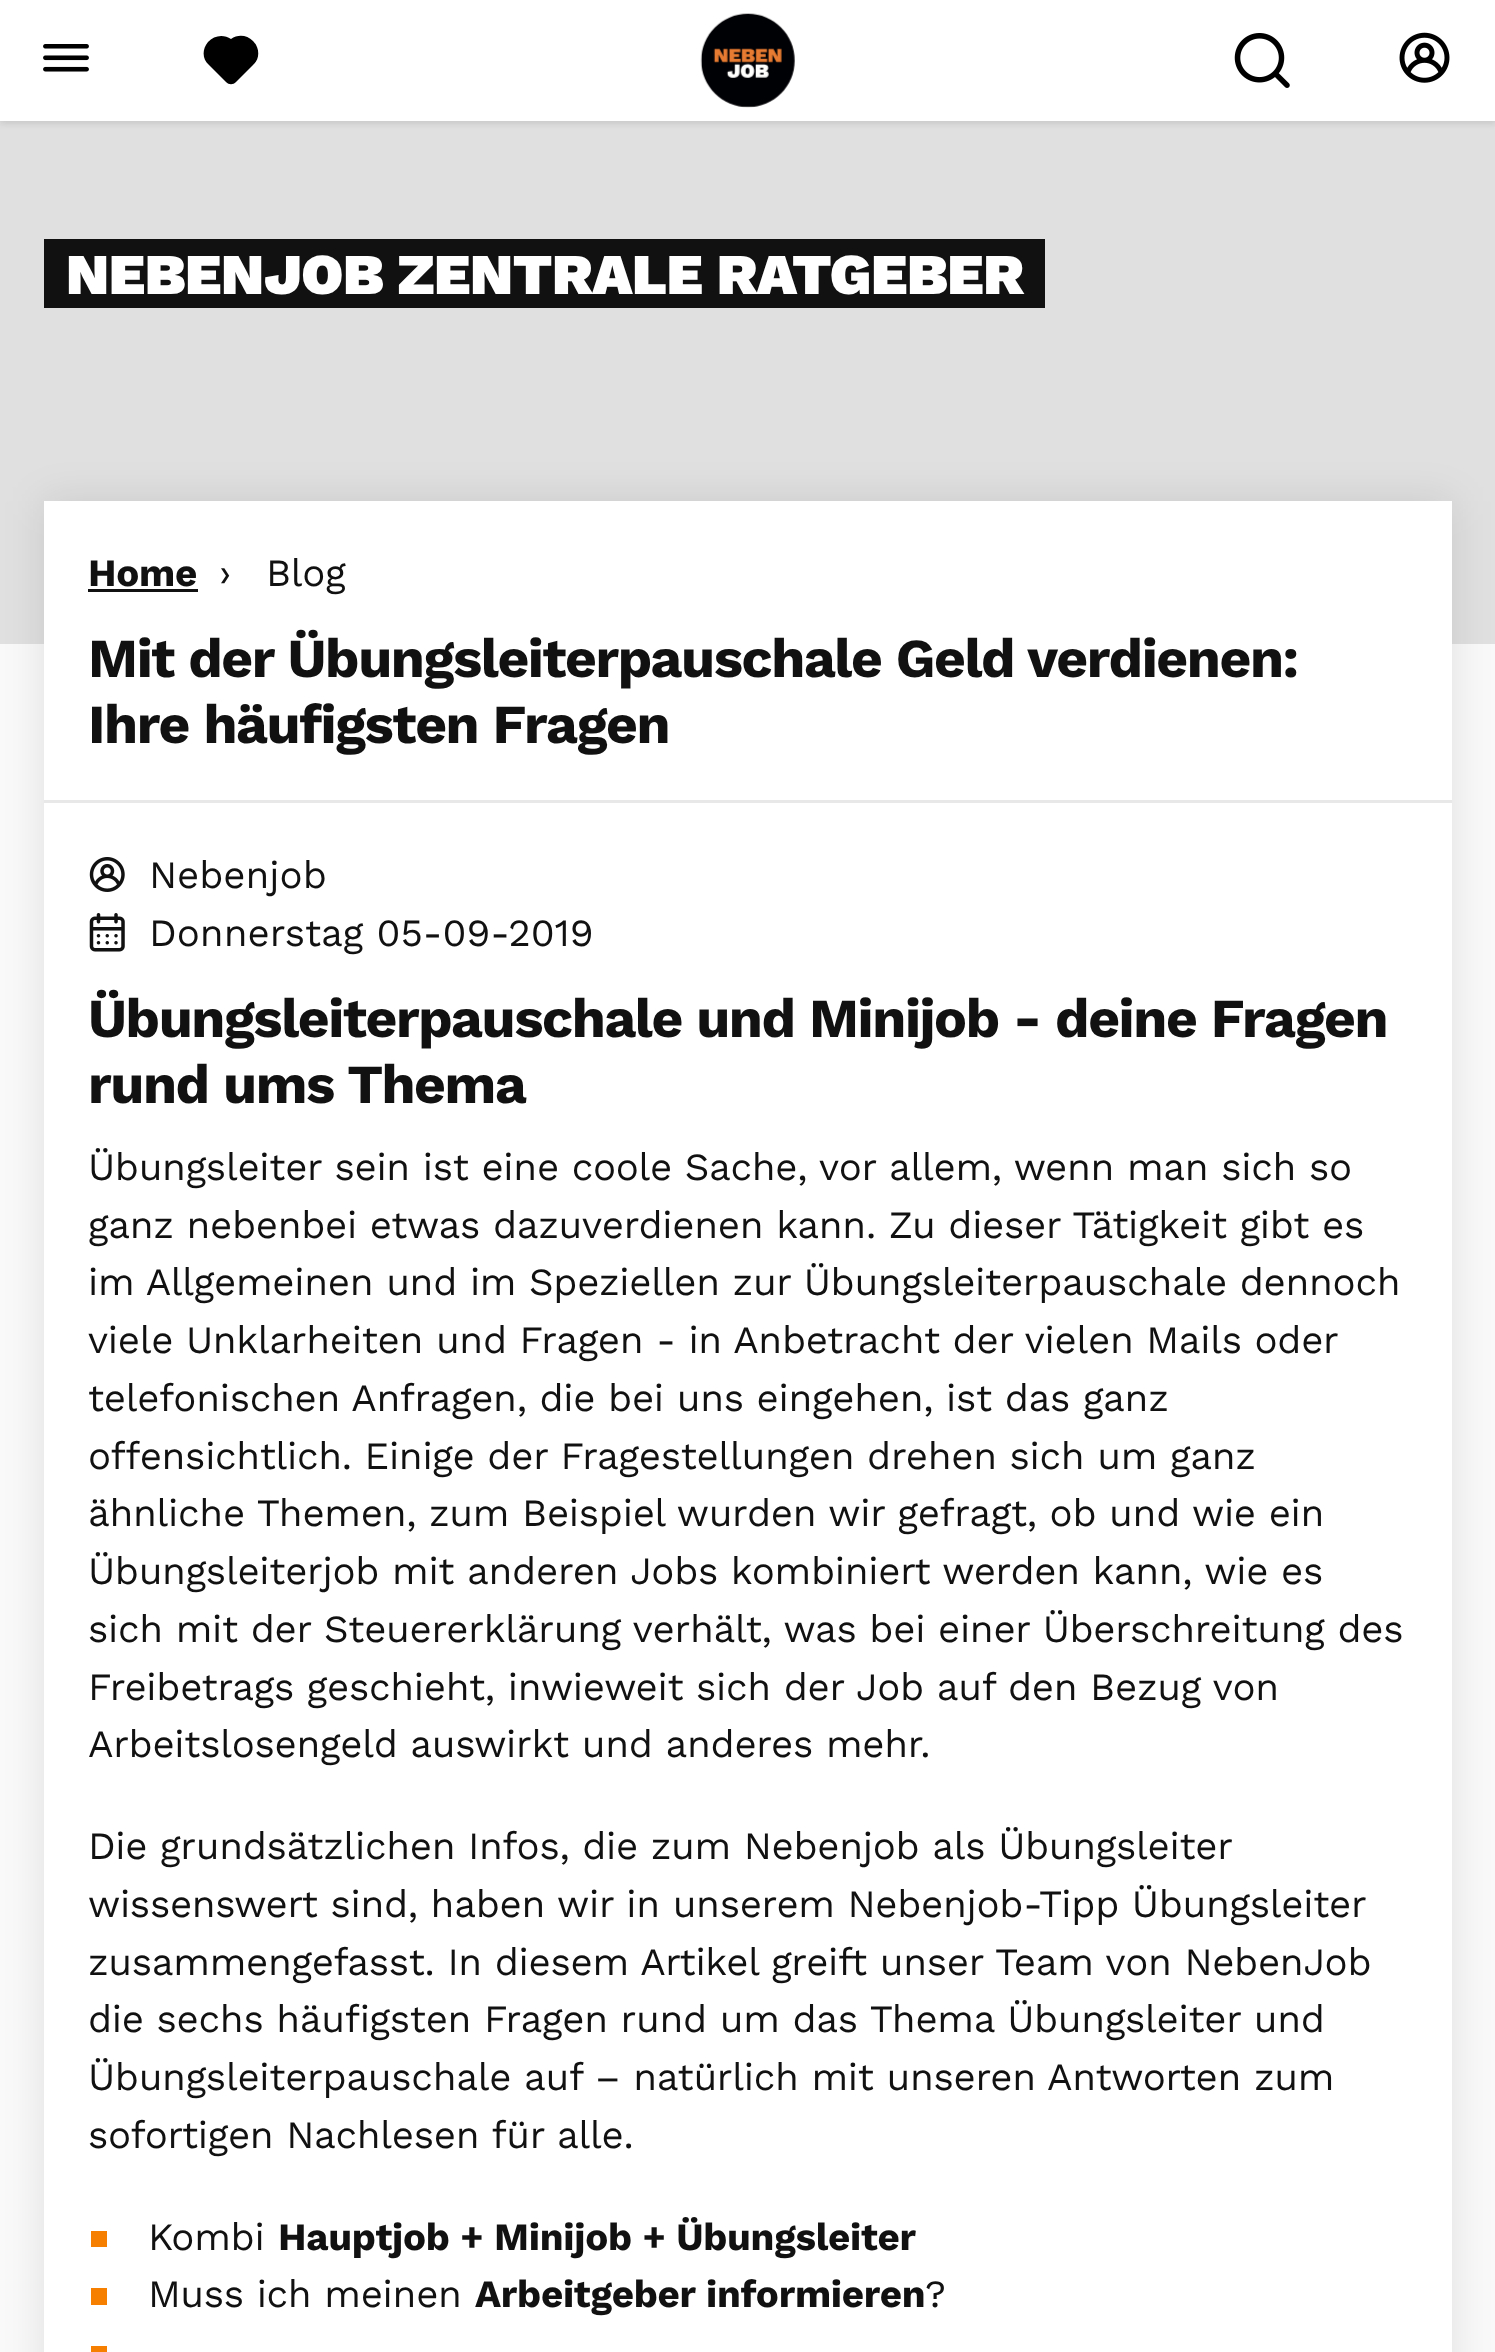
<svg xmlns="http://www.w3.org/2000/svg" width="1495" height="2352">
<rect width="100%" height="100%" fill="#f9f9f9"/>
<rect y="121" width="1495" height="523" fill="#e0e0e1"/>
<rect y="3" width="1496" height="121" fill="#0000001a" filter="blur(3px)"/>
<rect width="1495" height="121" fill="#fff"/>
<image x="43" y="44" width="46" height="28" href="media/1.png"/>
<path d="M253 41c-6-6-15-7-22-2c-7-5-17-4-23 3c-6 7-6 17 1 23l17 17c3 3 7 3 10 0l17-17c7-6 7-17 0-24z" fill="#000"/>
<image x="700" y="13" width="95" height="95" href="media/2.png"/>
<image x="1234" y="33" width="56" height="55" href="media/3.png"/>
<image x="1399" y="32" width="51" height="51" href="media/4.png"/>
<rect x="44" y="239" width="1001" height="69" fill="#111"/>
<text x="66" y="294" style="font-family:Work Sans;font-size:57.75px;font-weight:900;letter-spacing:-0.28px;fill:#fff">NEBENJOB ZENTRALE RATGEBER</text>
<rect x="44" y="501" width="1408" height="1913" fill="#0000001a" filter="blur(20.5px)"/>
<rect x="44" y="501" width="1408" height="1851" fill="#fff"/>
<text x="88" y="586" style="font-family:Work Sans;font-size:38.5px;font-weight:bold;letter-spacing:-0.28px;fill:#111">Home</text>
<rect x="88" y="589" width="110" height="3" fill="#111"/>
<text x="219" y="586" style="font-family:Work Sans;font-size:38.5px;letter-spacing:-0.28px;fill:#111">›</text>
<text x="266" y="586" style="font-family:Work Sans;font-size:38.5px;letter-spacing:-0.28px;fill:#111">Blog</text>
<text x="88" y="677" style="font-family:Work Sans;font-size:55px;font-weight:bold;letter-spacing:-1.4px;fill:#111">Mit der Übungsleiterpauschale Geld verdienen:</text>
<text x="88" y="743" style="font-family:Work Sans;font-size:55px;font-weight:bold;letter-spacing:-1.4px;fill:#111">Ihre häufigsten Fragen</text>
<rect x="44" y="800" width="1408" height="3" fill="#e8e8e8"/>
<image x="89" y="857" width="36" height="35" href="media/5.png"/>
<text x="149" y="888" style="font-family:Work Sans;font-size:38.5px;fill:#111">Nebenjob</text>
<image x="89" y="913" width="36" height="39" href="media/6.png"/>
<text x="149" y="946" style="font-family:Work Sans;font-size:38.5px;fill:#111">Donnerstag 05-09-2019</text>
<text x="88" y="1037" style="font-family:Work Sans;font-size:55px;font-weight:bold;letter-spacing:-1.4px;fill:#111">Übungsleiterpauschale und Minijob - deine Fragen</text>
<text x="88" y="1103" style="font-family:Work Sans;font-size:55px;font-weight:bold;letter-spacing:-1.4px;fill:#111">rund ums Thema</text>
<text x="88" y="1180" style="font-family:Work Sans;font-size:38.5px;letter-spacing:-0.28px;fill:#111">Übungsleiter sein ist eine coole Sache, vor allem, wenn man sich so</text>
<text x="88" y="1238" style="font-family:Work Sans;font-size:38.5px;letter-spacing:-0.28px;fill:#111">ganz nebenbei etwas dazuverdienen kann. Zu dieser Tätigkeit gibt es</text>
<text x="88" y="1295" style="font-family:Work Sans;font-size:38.5px;letter-spacing:-0.28px;fill:#111">im Allgemeinen und im Speziellen zur Übungsleiterpauschale dennoch</text>
<text x="88" y="1353" style="font-family:Work Sans;font-size:38.5px;letter-spacing:-0.28px;fill:#111">viele Unklarheiten und Fragen - in Anbetracht der vielen Mails oder</text>
<text x="88" y="1411" style="font-family:Work Sans;font-size:38.5px;letter-spacing:-0.28px;fill:#111">telefonischen Anfragen, die bei uns eingehen, ist das ganz</text>
<text x="88" y="1469" style="font-family:Work Sans;font-size:38.5px;letter-spacing:-0.28px;fill:#111">offensichtlich. Einige der Fragestellungen drehen sich um ganz</text>
<text x="88" y="1526" style="font-family:Work Sans;font-size:38.5px;letter-spacing:-0.28px;fill:#111">ähnliche Themen, zum Beispiel wurden wir gefragt, ob und wie ein</text>
<text x="88" y="1584" style="font-family:Work Sans;font-size:38.5px;letter-spacing:-0.28px;fill:#111">Übungsleiterjob mit anderen Jobs kombiniert werden kann, wie es</text>
<text x="88" y="1642" style="font-family:Work Sans;font-size:38.5px;letter-spacing:-0.28px;fill:#111">sich mit der Steuererklärung verhält, was bei einer Überschreitung des</text>
<text x="88" y="1700" style="font-family:Work Sans;font-size:38.5px;letter-spacing:-0.28px;fill:#111">Freibetrags geschieht, inwieweit sich der Job auf den Bezug von</text>
<text x="88" y="1757" style="font-family:Work Sans;font-size:38.5px;letter-spacing:-0.28px;fill:#111">Arbeitslosengeld auswirkt und anderes mehr.</text>
<text x="88" y="1859" style="font-family:Work Sans;font-size:38.5px;letter-spacing:-0.28px;fill:#111">Die grundsätzlichen Infos, die zum Nebenjob als Übungsleiter</text>
<text x="88" y="1917" style="font-family:Work Sans;font-size:38.5px;letter-spacing:-0.28px;fill:#111">wissenswert sind, haben wir in unserem Nebenjob-Tipp Übungsleiter</text>
<text x="88" y="1975" style="font-family:Work Sans;font-size:38.5px;letter-spacing:-0.28px;fill:#111">zusammengefasst. In diesem Artikel greift unser Team von NebenJob</text>
<text x="88" y="2032" style="font-family:Work Sans;font-size:38.5px;letter-spacing:-0.28px;fill:#111">die sechs häufigsten Fragen rund um das Thema Übungsleiter und</text>
<text x="88" y="2090" style="font-family:Work Sans;font-size:38.5px;letter-spacing:-0.28px;fill:#111">Übungsleiterpauschale auf – natürlich mit unseren Antworten zum</text>
<text x="88" y="2148" style="font-family:Work Sans;font-size:38.5px;letter-spacing:-0.28px;fill:#111">sofortigen Nachlesen für alle.</text>
<rect x="91" y="2231" width="16" height="16" fill="#f77f00"/>
<text x="148" y="2250" style="font-family:Work Sans;font-size:38.5px;letter-spacing:-0.28px;fill:#111">Kombi</text>
<text x="278" y="2250" style="font-family:Work Sans;font-size:38.5px;font-weight:bold;letter-spacing:-0.28px;fill:#111">Hauptjob + Minijob + Übungsleiter</text>
<rect x="91" y="2288" width="16" height="17" fill="#f77f00"/>
<text x="148" y="2307" style="font-family:Work Sans;font-size:38.5px;letter-spacing:-0.28px;fill:#111">Muss ich meinen</text>
<text x="475" y="2307" style="font-family:Work Sans;font-size:38.5px;font-weight:bold;letter-spacing:-0.28px;fill:#111">Arbeitgeber informieren</text>
<text x="925" y="2307" style="font-family:Work Sans;font-size:38.5px;letter-spacing:-0.28px;fill:#111">?</text>
<rect x="91" y="2346" width="16" height="6" fill="#f77f00"/>
</svg>
